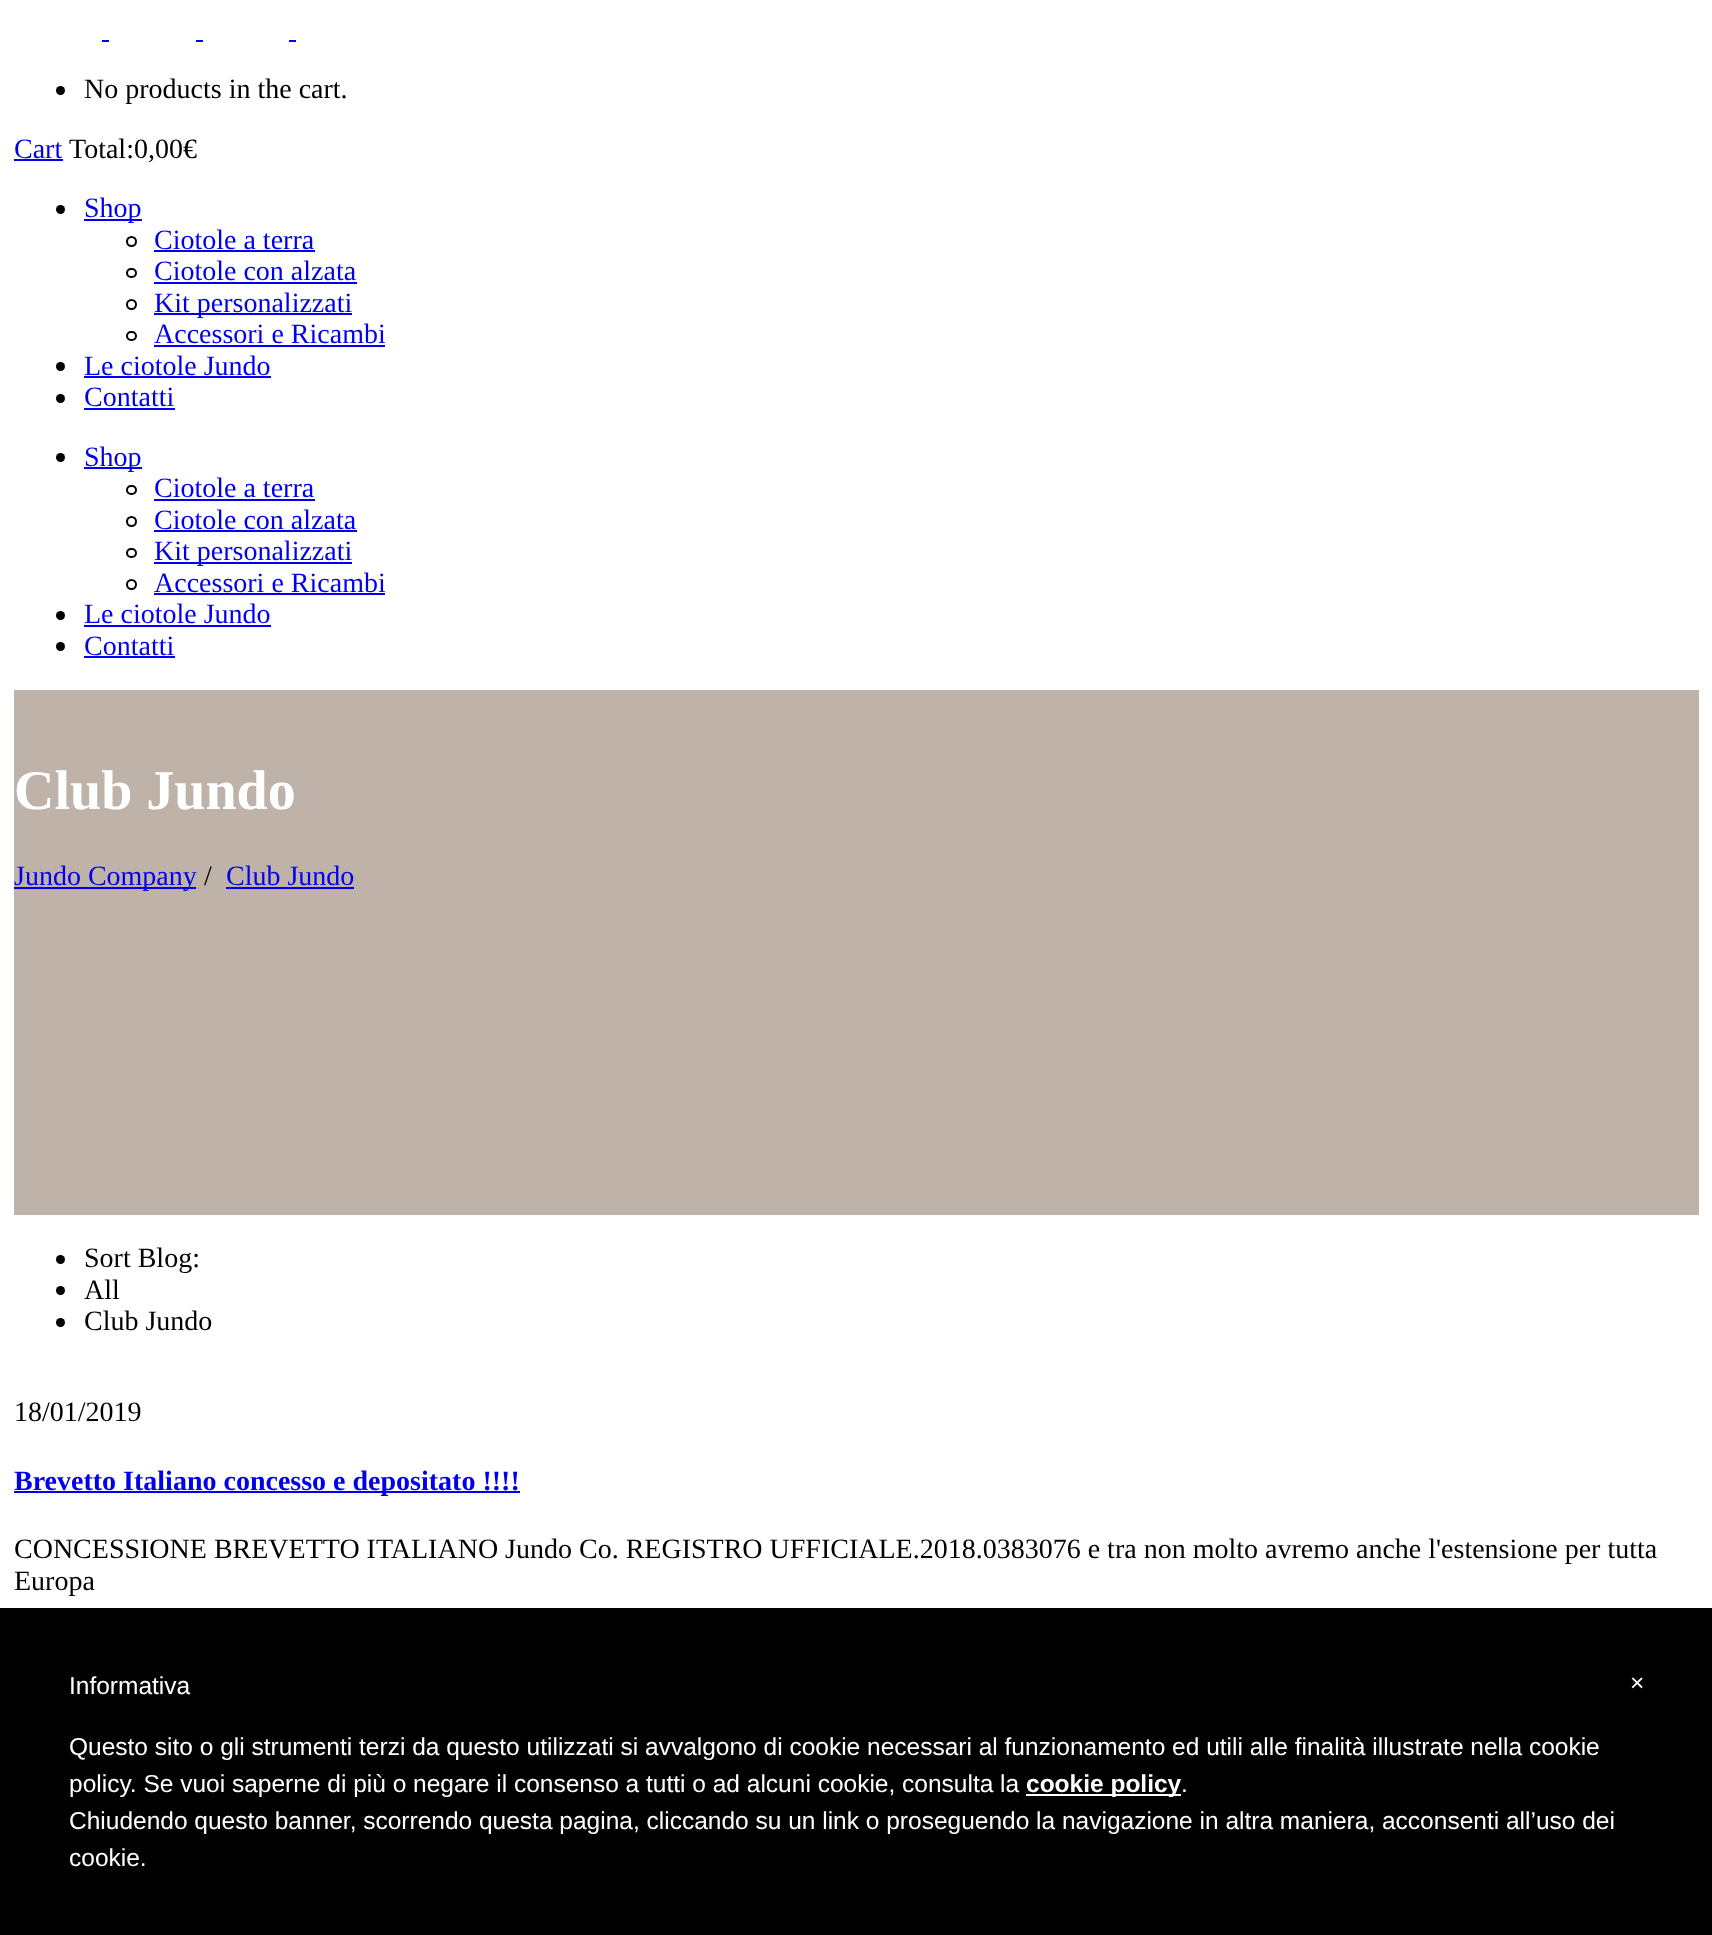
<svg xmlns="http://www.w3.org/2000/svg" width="1712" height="1935">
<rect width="100%" height="100%" fill="#fff"/>
<rect x="102" y="40" width="7" height="2" fill="#00e"/>
<rect x="196" y="40" width="7" height="2" fill="#00e"/>
<rect x="289" y="40" width="7" height="2" fill="#00e"/>
<circle cx="60.5" cy="90.5" r="4.5" fill="#000"/>
<text x="84" y="98" style="font-family:Liberation Serif;font-size:28px;fill:#000">No products in the cart.</text>
<text x="14" y="158" style="font-family:Liberation Serif;font-size:28px;fill:#00e">Cart</text>
<rect x="14" y="159" width="49" height="2" fill="#00e"/>
<text x="69" y="158" style="font-family:Liberation Serif;font-size:28px;fill:#000">Total:0,00€</text>
<circle cx="60.5" cy="209.5" r="4.5" fill="#000"/>
<rect x="84" y="219" width="58" height="2" fill="#00e"/>
<text x="84" y="217" style="font-family:Liberation Serif;font-size:28px;fill:#00e">Shop</text>
<circle cx="131.5" cy="241.5" r="4.5" fill="none" stroke="#000" stroke-width="2"/>
<text x="154" y="249" style="font-family:Liberation Serif;font-size:28px;fill:#00e">Ciotole a terra</text>
<rect x="154" y="250" width="161" height="2" fill="#00e"/>
<rect x="127" y="269" width="9" height="8" rx="4" fill="none" stroke="#000" stroke-width="2"/>
<text x="154" y="280" style="font-family:Liberation Serif;font-size:28px;fill:#00e">Ciotole con alzata</text>
<rect x="154" y="282" width="203" height="2" fill="#00e"/>
<circle cx="131.5" cy="304.5" r="4.5" fill="none" stroke="#000" stroke-width="2"/>
<rect x="154" y="313" width="198" height="2" fill="#00e"/>
<text x="154" y="312" style="font-family:Liberation Serif;font-size:28px;fill:#00e">Kit personalizzati</text>
<rect x="127" y="332" width="9" height="8" rx="4" fill="none" stroke="#000" stroke-width="2"/>
<text x="154" y="343" style="font-family:Liberation Serif;font-size:28px;fill:#00e">Accessori e Ricambi</text>
<rect x="154" y="345" width="231" height="2" fill="#00e"/>
<circle cx="60.5" cy="366.5" r="4.5" fill="#000"/>
<text x="84" y="375" style="font-family:Liberation Serif;font-size:28px;fill:#00e">Le ciotole Jundo</text>
<rect x="84" y="376" width="187" height="2" fill="#00e"/>
<circle cx="60.5" cy="398.5" r="4.5" fill="#000"/>
<text x="84" y="406" style="font-family:Liberation Serif;font-size:28px;fill:#00e">Contatti</text>
<rect x="84" y="408" width="91" height="2" fill="#00e"/>
<circle cx="60.5" cy="457.5" r="4.5" fill="#000"/>
<rect x="84" y="467" width="58" height="2" fill="#00e"/>
<text x="84" y="466" style="font-family:Liberation Serif;font-size:28px;fill:#00e">Shop</text>
<rect x="127" y="486" width="9" height="8" rx="4" fill="none" stroke="#000" stroke-width="2"/>
<text x="154" y="497" style="font-family:Liberation Serif;font-size:28px;fill:#00e">Ciotole a terra</text>
<rect x="154" y="499" width="161" height="2" fill="#00e"/>
<circle cx="131.5" cy="521.5" r="4.5" fill="none" stroke="#000" stroke-width="2"/>
<text x="154" y="529" style="font-family:Liberation Serif;font-size:28px;fill:#00e">Ciotole con alzata</text>
<rect x="154" y="530" width="203" height="2" fill="#00e"/>
<rect x="127" y="549" width="9" height="8" rx="4" fill="none" stroke="#000" stroke-width="2"/>
<rect x="154" y="562" width="198" height="2" fill="#00e"/>
<text x="154" y="560" style="font-family:Liberation Serif;font-size:28px;fill:#00e">Kit personalizzati</text>
<circle cx="131.5" cy="584.5" r="4.5" fill="none" stroke="#000" stroke-width="2"/>
<text x="154" y="592" style="font-family:Liberation Serif;font-size:28px;fill:#00e">Accessori e Ricambi</text>
<rect x="154" y="593" width="231" height="2" fill="#00e"/>
<circle cx="60.5" cy="615.5" r="4.5" fill="#000"/>
<text x="84" y="623" style="font-family:Liberation Serif;font-size:28px;fill:#00e">Le ciotole Jundo</text>
<rect x="84" y="625" width="187" height="2" fill="#00e"/>
<circle cx="60.5" cy="646.5" r="4.5" fill="#000"/>
<text x="84" y="655" style="font-family:Liberation Serif;font-size:28px;fill:#00e">Contatti</text>
<rect x="84" y="656" width="91" height="2" fill="#00e"/>
<rect x="14" y="690" width="1685" height="525" fill="#beb2a9"/>
<text x="14" y="809" style="font-family:Liberation Serif;font-size:56px;font-weight:bold;fill:#fff">Club Jundo</text>
<rect x="14" y="887" width="182" height="2" fill="#00e"/>
<text x="14" y="885" style="font-family:Liberation Serif;font-size:28px;fill:#00e">Jundo Company</text>
<text x="204" y="885" style="font-family:Liberation Serif;font-size:28px;fill:#000">/</text>
<text x="226" y="885" style="font-family:Liberation Serif;font-size:28px;fill:#00e">Club Jundo</text>
<rect x="226" y="887" width="128" height="2" fill="#00e"/>
<circle cx="60.5" cy="1259.5" r="4.5" fill="#000"/>
<text x="84" y="1267" style="font-family:Liberation Serif;font-size:28px;fill:#000">Sort Blog:</text>
<circle cx="60.5" cy="1290.5" r="4.5" fill="#000"/>
<text x="84" y="1299" style="font-family:Liberation Serif;font-size:28px;fill:#000">All</text>
<circle cx="60.5" cy="1322.5" r="4.5" fill="#000"/>
<text x="84" y="1330" style="font-family:Liberation Serif;font-size:28px;fill:#000">Club Jundo</text>
<text x="14" y="1421" style="font-family:Liberation Serif;font-size:28px;fill:#000">18/01/2019</text>
<rect x="14" y="1491" width="506" height="2" fill="#00e"/>
<text x="14" y="1490" style="font-family:Liberation Serif;font-size:28px;font-weight:bold;fill:#00e">Brevetto Italiano concesso e depositato !!!!</text>
<text x="14" y="1558" style="font-family:Liberation Serif;font-size:28px;fill:#000">CONCESSIONE BREVETTO ITALIANO Jundo Co. REGISTRO UFFICIALE.2018.0383076 e tra non molto avremo anche l'estensione per tutta</text>
<text x="14" y="1590" style="font-family:Liberation Serif;font-size:28px;fill:#000">Europa</text>
<rect y="1608" width="1712" height="327" fill="#000"/>
<text x="69" y="1694" style="font-family:Liberation Sans;font-size:24.5px;fill:#fff">Informativa</text>
<text x="69" y="1755" style="font-family:Liberation Sans;font-size:24.5px;fill:#fff">Questo sito o gli strumenti terzi da questo utilizzati si avvalgono di cookie necessari al funzionamento ed utili alle finalità illustrate nella cookie</text>
<text x="69" y="1792" style="font-family:Liberation Sans;font-size:24.5px;fill:#fff">policy. Se vuoi saperne di più o negare il consenso a tutti o ad alcuni cookie, consulta la</text>
<rect x="1026" y="1794" width="155" height="2" fill="#fff"/>
<text x="1026" y="1792" style="font-family:Liberation Sans;font-size:24.5px;font-weight:bold;fill:#fff">cookie policy</text>
<text x="1181" y="1792" style="font-family:Liberation Sans;font-size:24.5px;fill:#fff">.</text>
<text x="69" y="1829" style="font-family:Liberation Sans;font-size:24.5px;fill:#fff">Chiudendo questo banner, scorrendo questa pagina, cliccando su un link o proseguendo la navigazione in altra maniera, acconsenti all’uso dei</text>
<text x="69" y="1866" style="font-family:Liberation Sans;font-size:24.5px;fill:#fff">cookie.</text>
<text x="1630" y="1691" style="font-family:Liberation Sans;font-size:24.5px;fill:#fff">×</text>
</svg>
